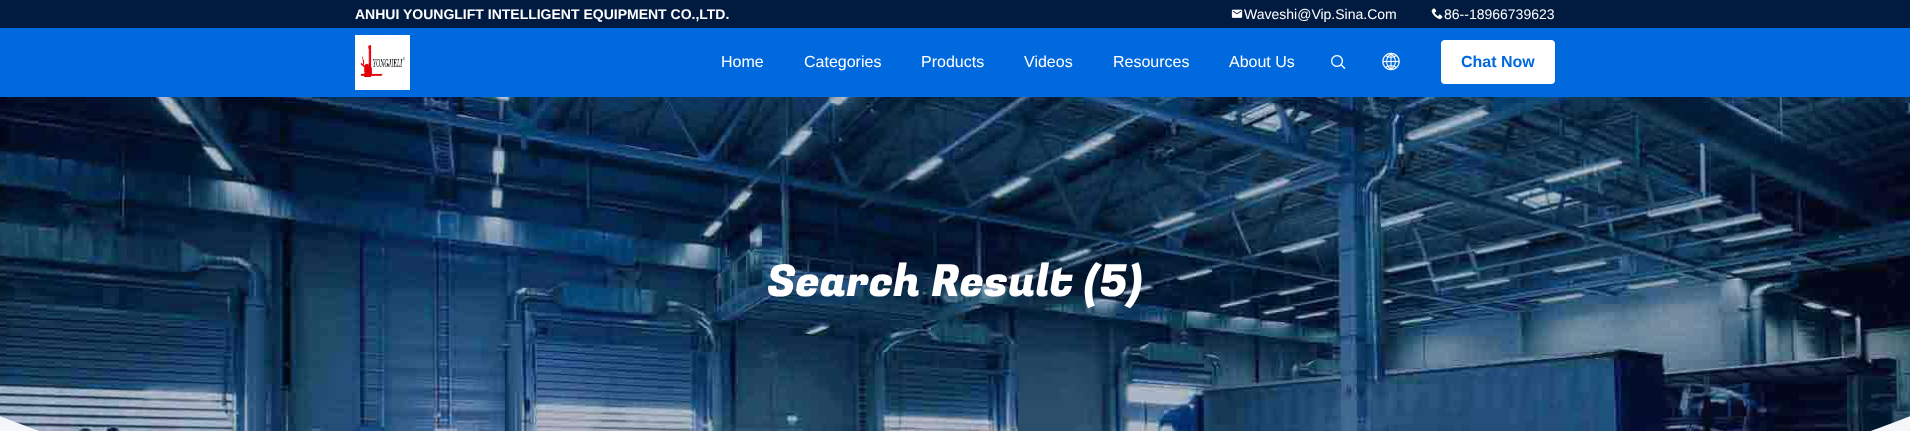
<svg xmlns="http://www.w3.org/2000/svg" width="1910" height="431">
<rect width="100%" height="100%" fill="#fff"/>
<rect width="1910" height="28" fill="#001b3f"/>
<text x="355" y="19" style="font-family:Liberation Sans;font-size:14px;font-weight:bold;fill:#fff">ANHUI YOUNGLIFT INTELLIGENT EQUIPMENT CO.,LTD.</text>
<image x="1231" y="9" width="12" height="9" href="media/1.png"/>
<text x="1244" y="19" style="font-family:Liberation Sans;font-size:14px;fill:#fff">Waveshi@Vip.Sina.Com</text>
<image x="1431" y="8" width="12" height="12" href="media/2.png"/>
<text x="1444" y="19" style="font-family:Liberation Sans;font-size:14px;fill:#fff">86--18966739623</text>
<rect y="28" width="1910" height="69" fill="#0069de"/>
<image x="355" y="35" width="55" height="55" href="media/3.png"/>
<text x="721" y="67" style="font-family:Liberation Sans;font-size:16px;fill:#fff">Home</text>
<text x="804" y="67" style="font-family:Liberation Sans;font-size:16px;fill:#fff">Categories</text>
<text x="921" y="67" style="font-family:Liberation Sans;font-size:16px;fill:#fff">Products</text>
<text x="1024" y="67" style="font-family:Liberation Sans;font-size:16px;fill:#fff">Videos</text>
<text x="1113" y="67" style="font-family:Liberation Sans;font-size:16px;fill:#fff">Resources</text>
<text x="1229" y="67" style="font-family:Liberation Sans;font-size:16px;fill:#fff">About Us</text>
<image x="1331" y="55" width="15" height="14" href="media/4.png"/>
<image x="1382" y="52" width="18" height="19" href="media/5.png"/>
<rect x="1441" y="40" width="114" height="44" rx="4" fill="#fff"/>
<text x="1461" y="67" style="font-family:Liberation Sans;font-size:16px;font-weight:bold;fill:#0069de">Chat Now</text>
<image x="0" y="97" width="1910" height="334" href="media/6.png"/>
<text x="767" y="296" style="font-family:Fugaz One;font-size:44px;fill:#fff">Search Result (5)</text>
<image x="0" y="416" width="1910" height="15" href="media/7.png"/>
</svg>
